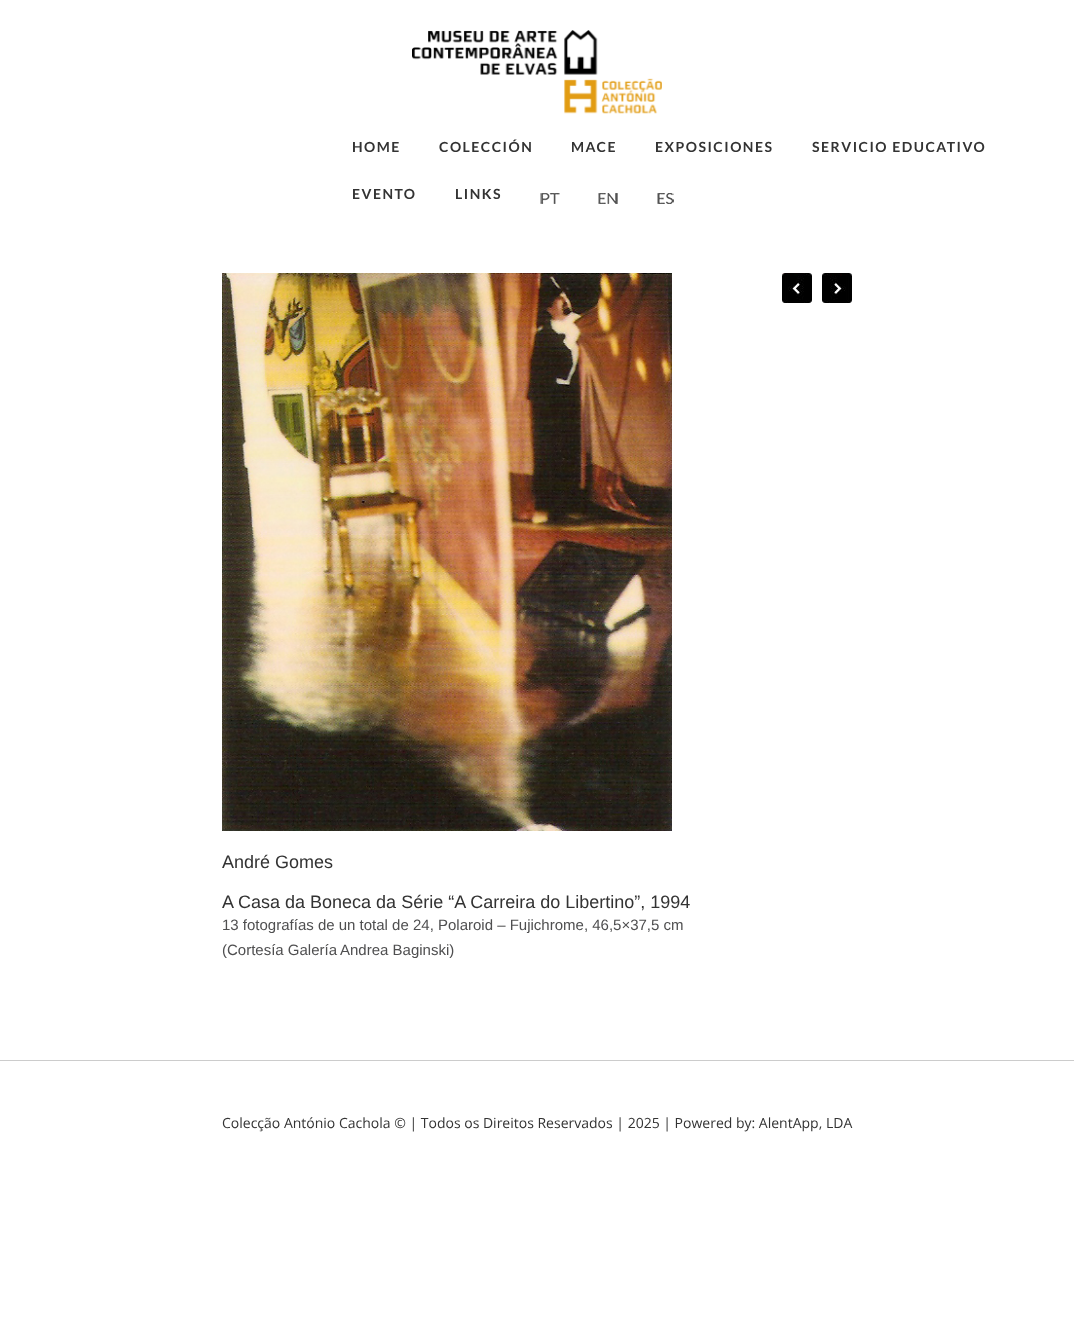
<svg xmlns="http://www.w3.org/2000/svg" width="1074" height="1333">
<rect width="100%" height="100%" fill="#fff"/>
<image x="412" y="30" width="250" height="84" href="media/1.png"/>
<text x="352" y="152" style="font-family:Lato;font-size:14px;font-weight:bold;letter-spacing:1.5px;fill:#333">HOME</text>
<text x="439" y="152" style="font-family:Lato;font-size:14px;font-weight:bold;letter-spacing:1.5px;fill:#333">COLECCIÓN</text>
<text x="571" y="152" style="font-family:Lato;font-size:14px;font-weight:bold;letter-spacing:1.5px;fill:#333">MACE</text>
<text x="655" y="152" style="font-family:Lato;font-size:14px;font-weight:bold;letter-spacing:1.5px;fill:#333">EXPOSICIONES</text>
<text x="812" y="152" style="font-family:Lato;font-size:14px;font-weight:bold;letter-spacing:1.5px;fill:#333">SERVICIO EDUCATIVO</text>
<text x="352" y="199" style="font-family:Lato;font-size:14px;font-weight:bold;letter-spacing:1.5px;fill:#333">EVENTO</text>
<text x="455" y="199" style="font-family:Lato;font-size:14px;font-weight:bold;letter-spacing:1.5px;fill:#333">LINKS</text>
<image x="540" y="193" width="20" height="11" href="media/2.png"/>
<image x="598" y="193" width="20" height="11" href="media/3.png"/>
<image x="657" y="193" width="17" height="11" href="media/4.png"/>
<image x="782" y="273" width="30" height="30" href="media/5.png"/>
<image x="822" y="273" width="30" height="30" href="media/6.png"/>
<image x="222" y="273" width="450" height="558" href="media/7.png"/>
<text x="222" y="868" style="font-family:Liberation Sans;font-size:18px;fill:#333">André Gomes</text>
<text x="222" y="908" style="font-family:Liberation Sans;font-size:18px;fill:#333">A Casa da Boneca da Série “A Carreira do Libertino”, 1994</text>
<text x="222" y="930" style="font-family:Liberation Sans;font-size:15px;fill:#4f4f50">13 fotografías de un total de 24, Polaroid – Fujichrome, 46,5×37,5 cm</text>
<text x="222" y="955" style="font-family:Liberation Sans;font-size:15px;fill:#4f4f50">(Cortesía Galería</text>
<text x="340" y="955" style="font-family:Liberation Sans;font-size:15px;fill:#4f4f50">Andrea Baginski)</text>
<rect y="1060" width="1074" height="1" fill="#ccc"/>
<text x="222" y="1128" style="font-family:Open Sans;font-size:14px;fill:#333">Colecção António Cachola © | Todos os Direitos Reservados | 2025 | Powered by: AlentApp, LDA</text>
</svg>
